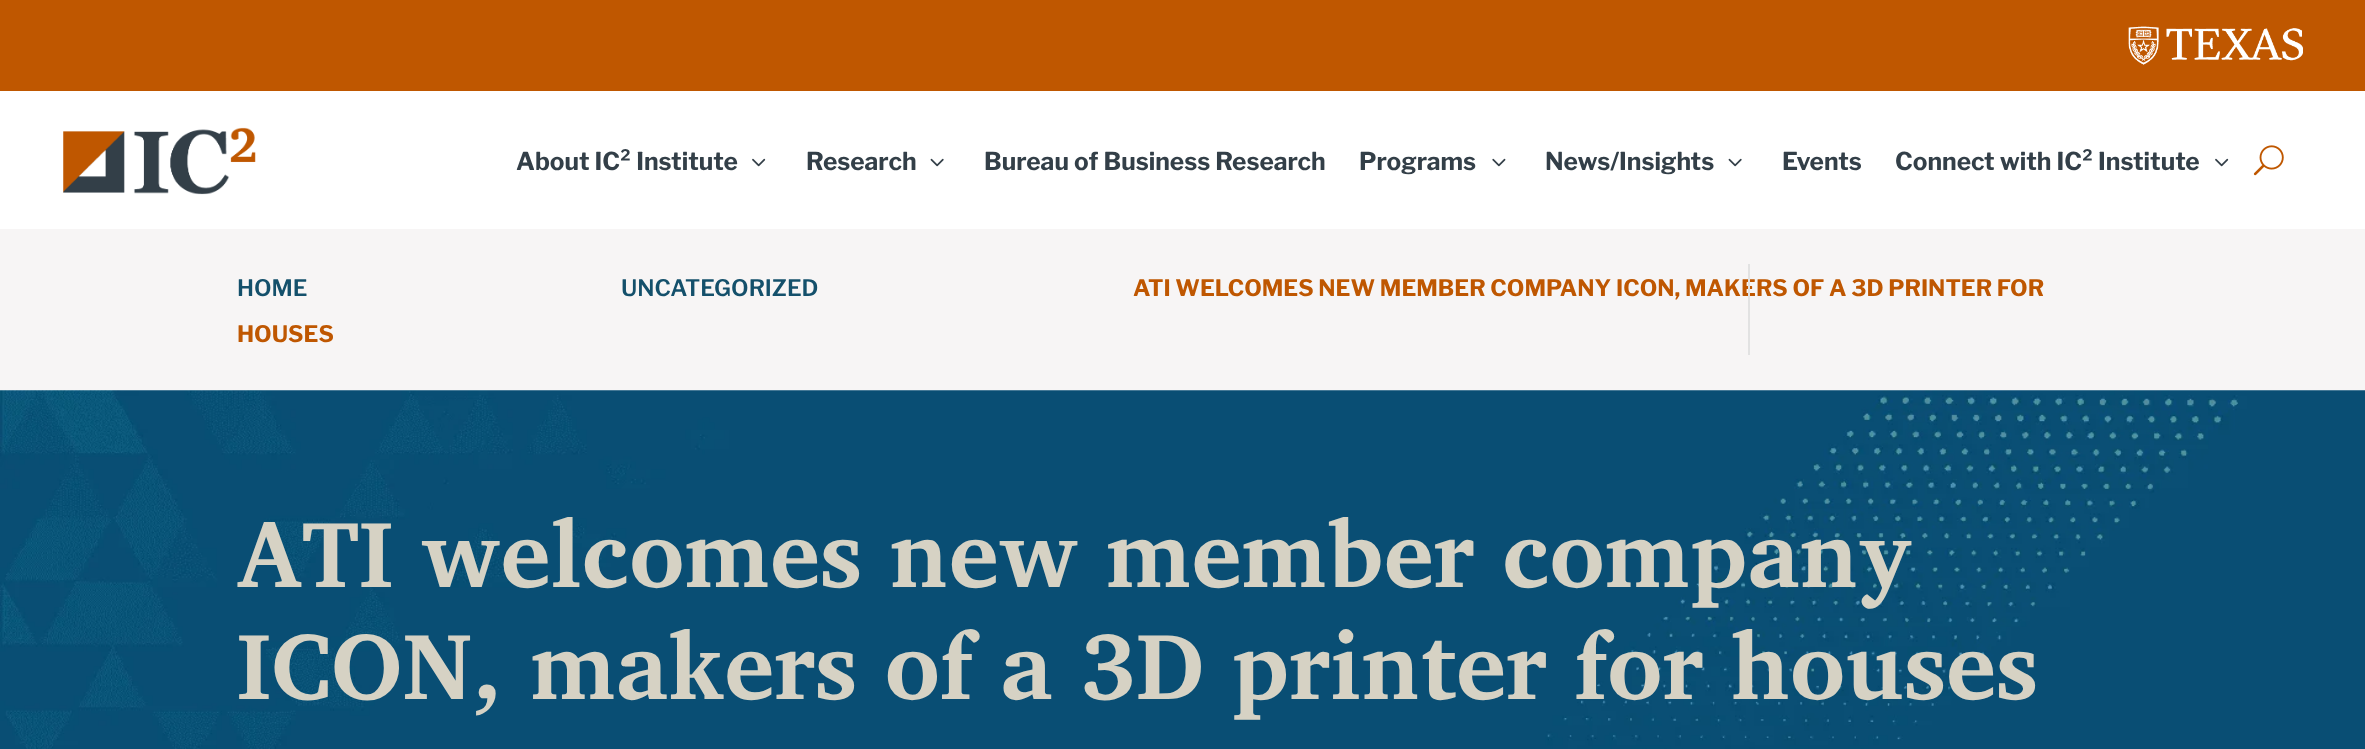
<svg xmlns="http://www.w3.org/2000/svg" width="2365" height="749">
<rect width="100%" height="100%" fill="#fff"/>
<rect width="2365" height="91" fill="#bf5700"/>
<image x="2128" y="26" width="175" height="39" href="media/1.png"/>
<image x="63" y="127" width="193" height="68" href="media/2.png"/>
<text x="516" y="170" style="font-family:Libre Franklin;font-size:24.5px;font-weight:bold;fill:#333f48">About IC² Institute</text>
<image x="752" y="158" width="14" height="9" href="media/3.png"/>
<text x="806" y="170" style="font-family:Libre Franklin;font-size:24.5px;font-weight:bold;fill:#333f48">Research</text>
<image x="930" y="158" width="14" height="9" href="media/4.png"/>
<text x="984" y="170" style="font-family:Libre Franklin;font-size:24.5px;font-weight:bold;fill:#333f48">Bureau of Business Research</text>
<text x="1359" y="170" style="font-family:Libre Franklin;font-size:24.5px;font-weight:bold;fill:#333f48">Programs</text>
<image x="1492" y="158" width="14" height="9" href="media/5.png"/>
<text x="1545" y="170" style="font-family:Libre Franklin;font-size:24.5px;font-weight:bold;fill:#333f48">News/Insights</text>
<image x="1728" y="158" width="14" height="9" href="media/4.png"/>
<text x="1782" y="170" style="font-family:Libre Franklin;font-size:24.5px;font-weight:bold;fill:#333f48">Events</text>
<text x="1895" y="170" style="font-family:Libre Franklin;font-size:24.5px;font-weight:bold;fill:#333f48">Connect with IC² Institute</text>
<image x="2215" y="158" width="14" height="9" href="media/3.png"/>
<image x="2253" y="145" width="31" height="31" href="media/6.png"/>
<rect y="229" width="2365" height="161" fill="#f7f5f5"/>
<text x="1133" y="296" style="font-family:Libre Franklin;font-size:22.75px;font-weight:bold;fill:#bf5701">ATI WELCOMES NEW MEMBER COMPANY ICON, MAKERS OF A 3D PRINTER FOR</text>
<rect x="1748" y="264" width="2" height="91" fill="#e2e2e2"/>
<text x="237" y="296" style="font-family:Libre Franklin;font-size:22.75px;font-weight:600;fill:#14506b">HOME</text>
<text x="621" y="296" style="font-family:Libre Franklin;font-size:22.75px;font-weight:600;fill:#14506b">UNCATEGORIZED</text>
<text x="237" y="342" style="font-family:Libre Franklin;font-size:22.75px;font-weight:bold;fill:#bf5701">HOUSES</text>
<image x="0" y="390" width="2365" height="359" href="media/7.png"/>
<text x="237" y="587" style="font-family:Charis SIL;font-size:94.5px;font-weight:bold;fill:#d6d2c4">ATI welcomes new member company</text>
<text x="237" y="699" style="font-family:Charis SIL;font-size:94.5px;font-weight:bold;fill:#d6d2c4">ICON, makers of a 3D printer for houses</text>
</svg>
